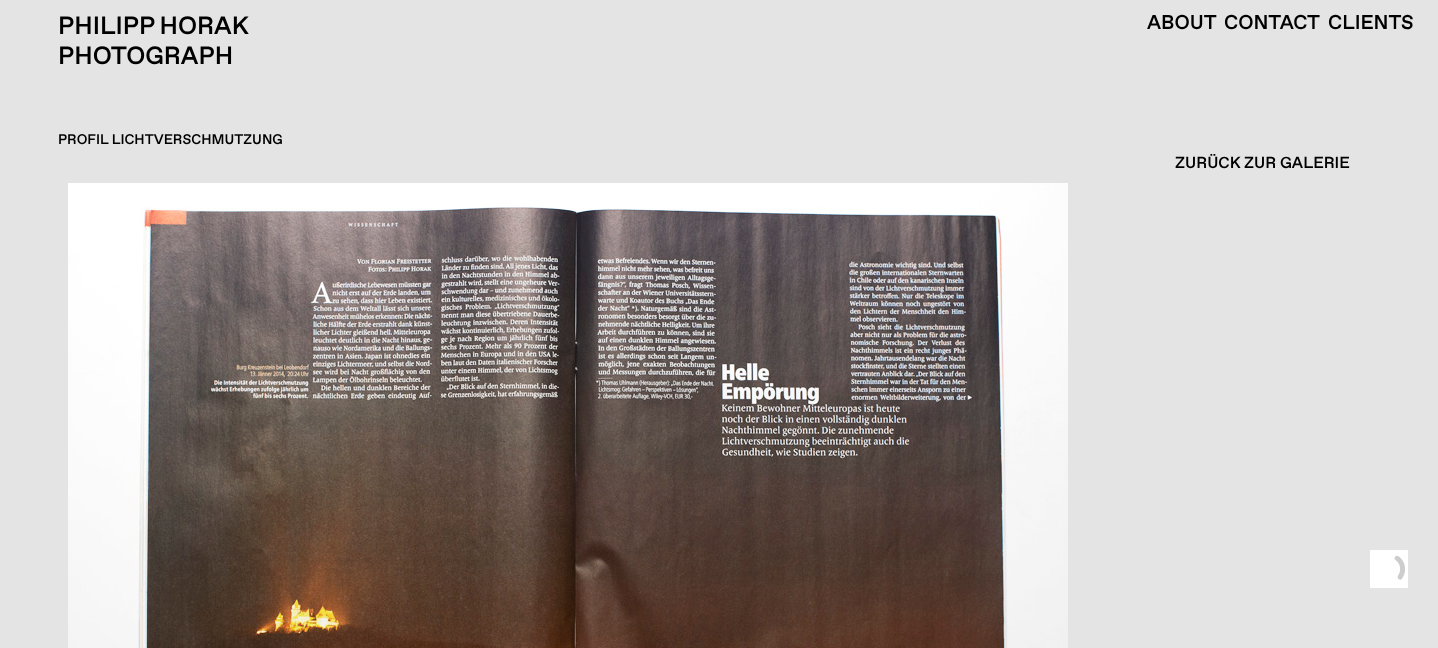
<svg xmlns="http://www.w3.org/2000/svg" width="1438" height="648">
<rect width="100%" height="100%" fill="#e4e4e4"/>
<text x="58" y="34" word-spacing="-1" style="font-family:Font;font-size:25px;font-weight:500;fill:#000">PHILIPP HORAK</text>
<text x="58" y="64" style="font-family:Font;font-size:25px;font-weight:500;fill:#000">PHOTOGRAPH</text>
<text x="1147" y="29" style="font-family:Font;font-size:20px;font-weight:500;fill:#000">ABOUT</text>
<text x="1224" y="29" style="font-family:Font;font-size:20px;font-weight:500;fill:#000">CONTACT</text>
<text x="1328" y="29" style="font-family:Font;font-size:20px;font-weight:500;fill:#000">CLIENTS</text>
<text x="58" y="144" style="font-family:Font;font-size:14px;font-weight:500;fill:#000">PROFIL LICHTVERSCHMUTZUNG</text>
<text x="1175" y="168" style="font-family:Font;font-size:16px;font-weight:500;fill:#000">ZURÜCK ZUR GALERIE</text>
<image x="68" y="183" width="1000" height="465" href="media/1.png"/>
<rect x="1370" y="550" width="38" height="38" fill="#fff"/>
<image x="1394" y="555" width="11" height="26" href="media/2.png"/>
</svg>
